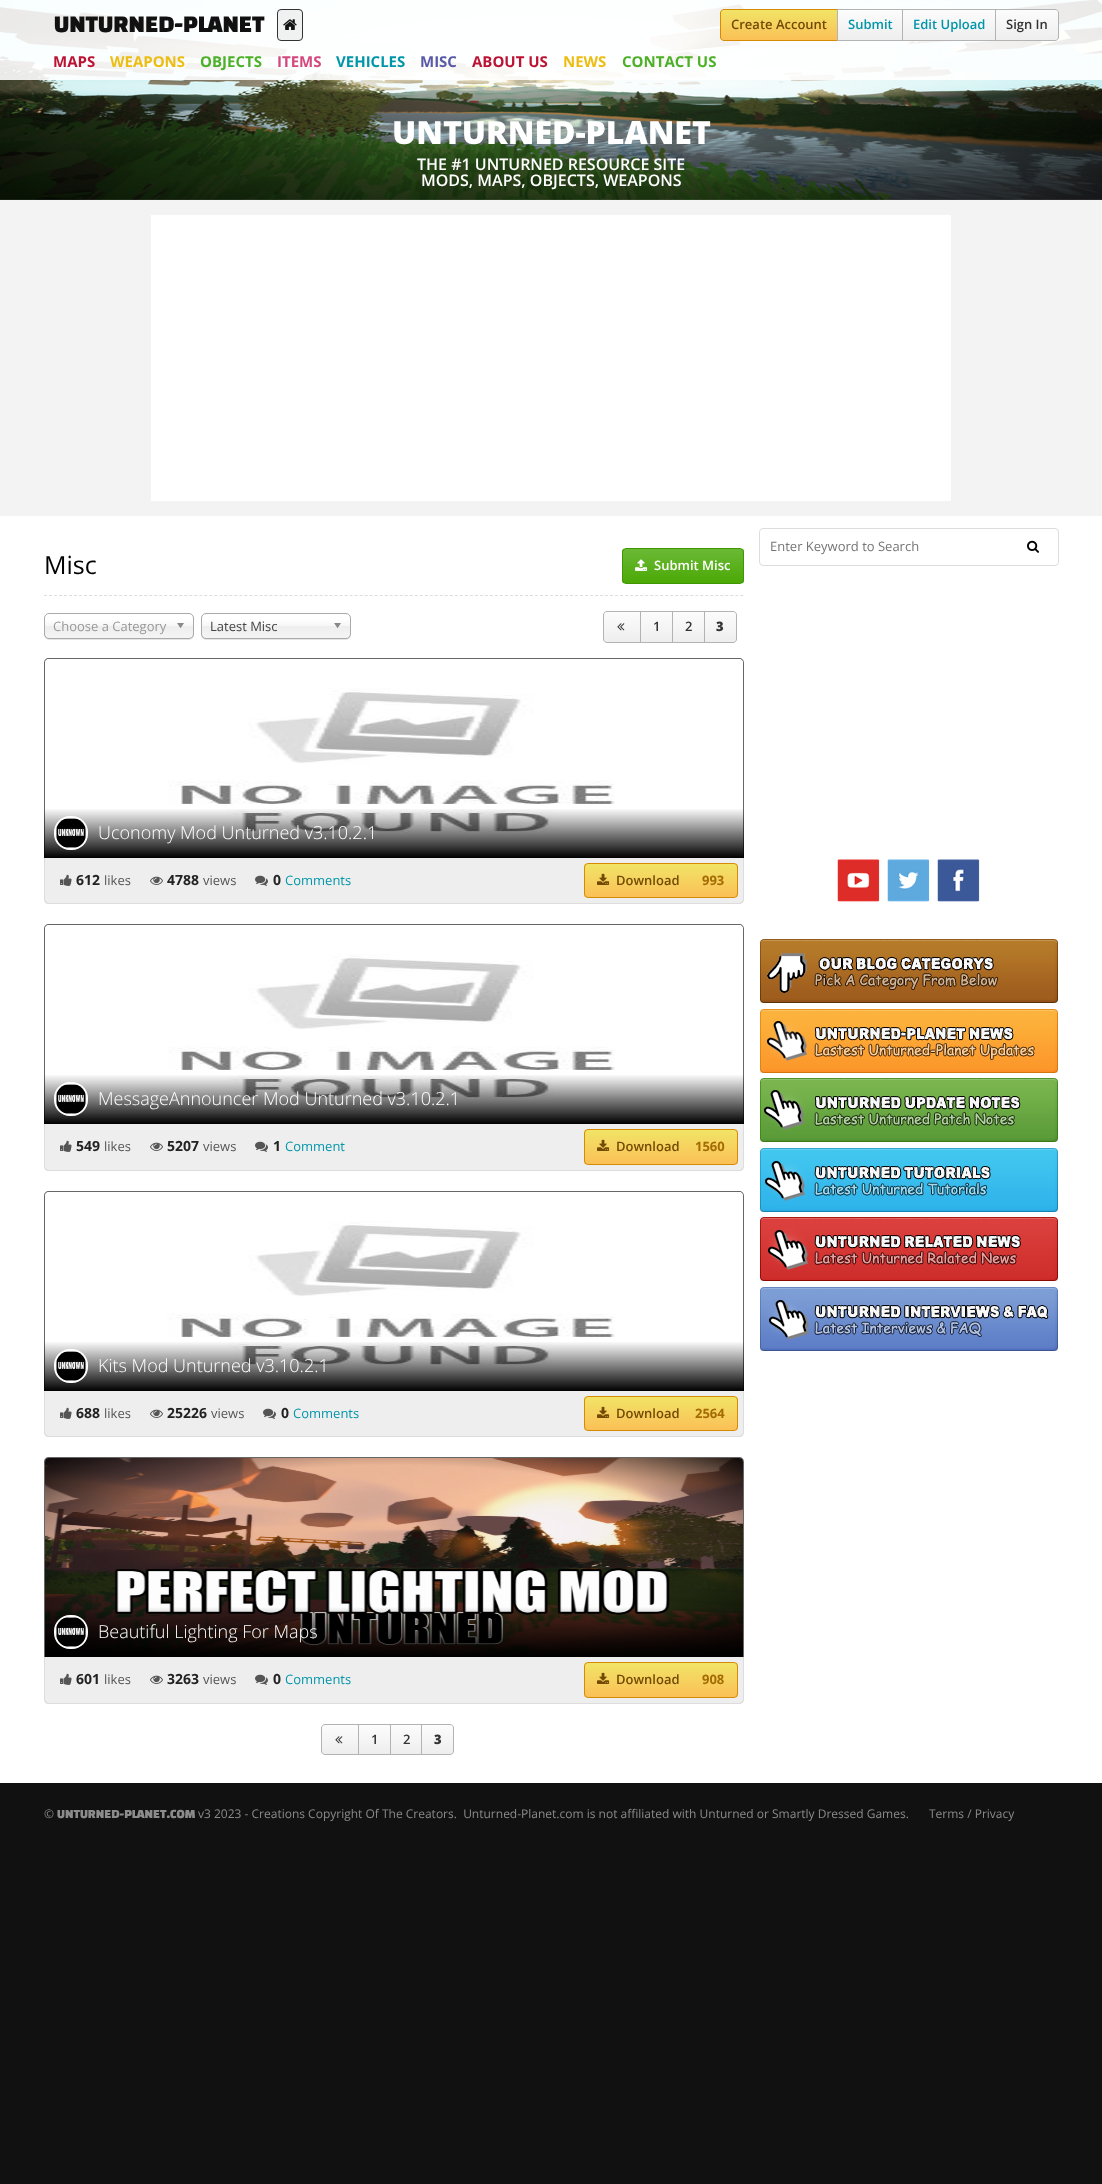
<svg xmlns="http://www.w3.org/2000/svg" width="1102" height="2184">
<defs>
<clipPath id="clip1"><path d="M724 9h114v32h-114c-2 0-4-2-4-4v-24c0-2 2-4 4-4z"/></clipPath>
<linearGradient id="g1" gradientUnits="userSpaceOnUse" x1="779" y1="10" x2="779" y2="40"><stop offset="0" stop-color="#f1e466"/><stop offset="1" stop-color="#fbc057"/></linearGradient>
<linearGradient id="g2" gradientUnits="userSpaceOnUse" x1="870" y1="10" x2="870" y2="40"><stop offset="0" stop-color="#fcfcfc"/><stop offset="1" stop-color="#eee"/></linearGradient>
<linearGradient id="g3" gradientUnits="userSpaceOnUse" x1="949" y1="10" x2="949" y2="40"><stop offset="0" stop-color="#fcfcfc"/><stop offset="1" stop-color="#eee"/></linearGradient>
<clipPath id="clip2"><path d="M995 9h60c2 0 4 2 4 4v24c0 2-2 4-4 4h-60z"/></clipPath>
<linearGradient id="g4" gradientUnits="userSpaceOnUse" x1="1027" y1="10" x2="1027" y2="40"><stop offset="0" stop-color="#fcfcfc"/><stop offset="1" stop-color="#eee"/></linearGradient>
<clipPath id="clip3"><rect x="622" y="548" width="122" height="36" rx="4"/></clipPath>
<linearGradient id="g5" gradientUnits="userSpaceOnUse" x1="683" y1="549" x2="683" y2="583"><stop offset="0" stop-color="#6bb936"/><stop offset="1" stop-color="#4ba905"/></linearGradient>
<linearGradient id="g6" gradientUnits="userSpaceOnUse" x1="119" y1="614" x2="119" y2="638"><stop offset="0.2" stop-color="#fff"/><stop offset="0.5" stop-color="#f6f6f6"/><stop offset="0.52" stop-color="#eee"/><stop offset="1" stop-color="#f4f4f4"/></linearGradient>
<linearGradient id="g7" gradientUnits="userSpaceOnUse" x1="276" y1="614" x2="276" y2="638"><stop offset="0.2" stop-color="#fff"/><stop offset="0.5" stop-color="#f6f6f6"/><stop offset="0.52" stop-color="#eee"/><stop offset="1" stop-color="#f4f4f4"/></linearGradient>
<clipPath id="clip4"><path d="M607 611h35v32h-35c-2 0-4-2-4-4v-24c0-2 2-4 4-4z"/></clipPath>
<linearGradient id="g8" gradientUnits="userSpaceOnUse" x1="623" y1="612" x2="623" y2="642"><stop offset="0" stop-color="#fcfcfc"/><stop offset="1" stop-color="#eee"/></linearGradient>
<linearGradient id="g9" gradientUnits="userSpaceOnUse" x1="657" y1="612" x2="657" y2="642"><stop offset="0" stop-color="#fcfcfc"/><stop offset="1" stop-color="#eee"/></linearGradient>
<linearGradient id="g10" gradientUnits="userSpaceOnUse" x1="689" y1="612" x2="689" y2="642"><stop offset="0" stop-color="#fcfcfc"/><stop offset="1" stop-color="#eee"/></linearGradient>
<clipPath id="clip5"><path d="M704 611h29c2 0 4 2 4 4v24c0 2-2 4-4 4h-29z"/></clipPath>
<linearGradient id="g11" gradientUnits="userSpaceOnUse" x1="721" y1="612" x2="721" y2="642"><stop offset="0" stop-color="#fcfcfc"/><stop offset="1" stop-color="#eee"/></linearGradient>
<linearGradient id="g12" gradientUnits="userSpaceOnUse" x1="394" y1="808" x2="394" y2="858"><stop offset="0" stop-color="#000" stop-opacity="0"/><stop offset="1" stop-color="#000"/></linearGradient>
<clipPath id="clip6"><rect x="584" y="863" width="154" height="35" rx="4"/></clipPath>
<linearGradient id="g13" gradientUnits="userSpaceOnUse" x1="661" y1="864" x2="661" y2="897"><stop offset="0" stop-color="#f1e466"/><stop offset="1" stop-color="#fbc057"/></linearGradient>
<linearGradient id="g14" gradientUnits="userSpaceOnUse" x1="394" y1="1074" x2="394" y2="1124"><stop offset="0" stop-color="#000" stop-opacity="0"/><stop offset="1" stop-color="#000"/></linearGradient>
<clipPath id="clip7"><rect x="584" y="1129" width="154" height="36" rx="4"/></clipPath>
<linearGradient id="g15" gradientUnits="userSpaceOnUse" x1="661" y1="1130" x2="661" y2="1164"><stop offset="0" stop-color="#f1e466"/><stop offset="1" stop-color="#fbc057"/></linearGradient>
<linearGradient id="g16" gradientUnits="userSpaceOnUse" x1="394" y1="1341" x2="394" y2="1391"><stop offset="0" stop-color="#000" stop-opacity="0"/><stop offset="1" stop-color="#000"/></linearGradient>
<clipPath id="clip8"><rect x="584" y="1396" width="154" height="35" rx="4"/></clipPath>
<linearGradient id="g17" gradientUnits="userSpaceOnUse" x1="661" y1="1397" x2="661" y2="1430"><stop offset="0" stop-color="#f1e466"/><stop offset="1" stop-color="#fbc057"/></linearGradient>
<clipPath id="clip9"><rect x="584" y="1662" width="154" height="36" rx="4"/></clipPath>
<linearGradient id="g18" gradientUnits="userSpaceOnUse" x1="661" y1="1663" x2="661" y2="1697"><stop offset="0" stop-color="#f1e466"/><stop offset="1" stop-color="#fbc057"/></linearGradient>
<clipPath id="clip10"><path d="M325 1724h34v31h-34c-2 0-4-2-4-4v-23c0-2 2-4 4-4z"/></clipPath>
<linearGradient id="g19" gradientUnits="userSpaceOnUse" x1="340" y1="1725" x2="340" y2="1754"><stop offset="0" stop-color="#fcfcfc"/><stop offset="1" stop-color="#eee"/></linearGradient>
<linearGradient id="g20" gradientUnits="userSpaceOnUse" x1="375" y1="1725" x2="375" y2="1754"><stop offset="0" stop-color="#fcfcfc"/><stop offset="1" stop-color="#eee"/></linearGradient>
<linearGradient id="g21" gradientUnits="userSpaceOnUse" x1="407" y1="1725" x2="407" y2="1754"><stop offset="0" stop-color="#fcfcfc"/><stop offset="1" stop-color="#eee"/></linearGradient>
<clipPath id="clip11"><path d="M421 1724h29c2 0 4 2 4 4v23c0 2-2 4-4 4h-29z"/></clipPath>
<linearGradient id="g22" gradientUnits="userSpaceOnUse" x1="438" y1="1725" x2="438" y2="1754"><stop offset="0" stop-color="#fcfcfc"/><stop offset="1" stop-color="#eee"/></linearGradient>
</defs>
<rect width="100%" height="100%" fill="#111"/>
<image x="0" y="0" width="1102" height="200" href="media/1.png"/>
<rect width="1102" height="80" fill="#ffffffe6"/>
<text x="54" y="32" style="font-family:Changa One;font-size:25px;fill:#111">UNTURNED-PLANET</text>
<rect x="277.5" y="9.5" width="25" height="31" rx="3.5" fill="#f0f2f2" stroke="#333"/>
<image x="283" y="19" width="14" height="11" href="media/2.png"/>
<g clip-path="url(#clip1)">
<rect x="720" y="10" width="117" height="30" fill="url(#g1)"/>
</g>
<path d="M724 9.5h113.5v31h-113.5c-2 0-3.5-1.5-3.5-3.5v-24c0-2 1.5-3.5 3.5-3.5z" fill="none" stroke="#d68b05"/>
<text x="731" y="29" style="font-family:Open Sans;font-size:13px;font-weight:600;fill:#724a03">Create Account</text>
<rect x="838" y="11" width="64" height="29" fill="url(#g2)"/>
<rect x="837.5" y="9.5" width="65" height="31" fill="none" stroke="#b3b3b3"/>
<text x="848" y="29" style="font-family:Open Sans;font-size:13px;font-weight:600;fill:#0096aa">Submit</text>
<rect x="903" y="10" width="92" height="30" fill="url(#g3)"/>
<rect x="902.5" y="9.5" width="93" height="31" fill="none" stroke="#b3b3b3"/>
<text x="913" y="29" style="font-family:Open Sans;font-size:13px;font-weight:600;fill:#0096aa">Edit Upload</text>
<g clip-path="url(#clip2)">
<rect x="996" y="10" width="63" height="30" fill="url(#g4)"/>
</g>
<path d="M995.5 9.5h59.5c2 0 3.5 1.5 3.5 3.5v24c0 2-1.5 3.5-3.5 3.5h-59.5z" fill="none" stroke="#b3b3b3"/>
<text x="1006" y="29" style="font-family:Open Sans;font-size:13px;font-weight:600;fill:#333">Sign In</text>
<text x="53" y="67" style="font-family:Open Sans;font-size:15px;font-weight:bold;fill:#bc1334">MAPS</text>
<text x="110" y="67" style="font-family:Open Sans;font-size:15px;font-weight:bold;fill:#ecbe13">WEAPONS</text>
<text x="200" y="67" style="font-family:Open Sans;font-size:15px;font-weight:bold;fill:#4db029">OBJECTS</text>
<text x="277" y="67" style="font-family:Open Sans;font-size:15px;font-weight:bold;fill:#d4487e">ITEMS</text>
<text x="336" y="67" style="font-family:Open Sans;font-size:15px;font-weight:bold;fill:#0096aa">VEHICLES</text>
<text x="420" y="67" style="font-family:Open Sans;font-size:15px;font-weight:bold;fill:#5859a7">MISC</text>
<text x="472" y="67" style="font-family:Open Sans;font-size:15px;font-weight:bold;fill:#bc1334">ABOUT US</text>
<text x="563" y="67" style="font-family:Open Sans;font-size:15px;font-weight:bold;fill:#ecbe13">NEWS</text>
<text x="622" y="67" style="font-family:Open Sans;font-size:15px;font-weight:bold;fill:#4db029">CONTACT US</text>
<text x="392" y="144" style="font-family:Open Sans;font-size:32px;font-weight:800;fill:#fff">UNTURNED-PLANET</text>
<text x="417" y="170" style="font-family:Open Sans;font-size:16px;font-weight:600;fill:#fff">THE #1 UNTURNED RESOURCE SITE</text>
<text x="421" y="186" style="font-family:Open Sans;font-size:16px;font-weight:600;fill:#fff">MODS, MAPS, OBJECTS, WEAPONS</text>
<rect y="200" width="1102" height="316" fill="#f3f3f3"/>
<rect x="151" y="215" width="800" height="286" fill="#fff"/>
<rect y="516" width="1102" height="1267" fill="#fff"/>
<rect x="759.5" y="528.5" width="299" height="37" rx="3.5" fill="none" stroke="#ddd"/>
<text x="770" y="551" style="font-family:Open Sans;font-size:13px;fill:#757575">Enter Keyword to Search</text>
<image x="1027" y="540" width="12" height="13" href="media/3.png"/>
<image x="837" y="859" width="43" height="43" href="media/4.png"/>
<image x="887" y="859" width="43" height="43" href="media/5.png"/>
<image x="937" y="859" width="43" height="43" href="media/6.png"/>
<image x="760" y="939" width="298" height="64" href="media/7.png"/>
<image x="760" y="1009" width="298" height="64" href="media/8.png"/>
<image x="760" y="1078" width="298" height="64" href="media/9.png"/>
<image x="760" y="1148" width="298" height="64" href="media/10.png"/>
<image x="760" y="1217" width="298" height="64" href="media/11.png"/>
<image x="760" y="1287" width="298" height="64" href="media/12.png"/>
<path d="M44 595.5h700" fill="none" stroke="#ddd" stroke-dasharray="3 2.01"/>
<text x="44" y="574" style="font-family:Open Sans;font-size:25px;fill:#000">Misc</text>
<g clip-path="url(#clip3)">
<rect x="622" y="549" width="122" height="34" fill="url(#g5)"/>
</g>
<rect x="622.5" y="548.5" width="121" height="35" rx="3.5" fill="none" stroke="#409701"/>
<image x="635" y="559" width="13" height="12" href="media/13.png"/>
<text x="654" y="570" style="font-family:Open Sans;font-size:13px;font-weight:600;fill:#fff">Submit Misc</text>
<rect x="44" y="614" width="150" height="26" rx="5" fill="#0000001a" filter="blur(0.5px)"/>
<rect x="45" y="614" width="148" height="24" rx="4" fill="url(#g6)"/>
<rect x="44.5" y="613.5" width="149" height="25" rx="4.5" fill="none" stroke="#aaa"/>
<text x="53" y="631" style="font-family:Open Sans;font-size:13px;fill:#999">Choose a Category</text>
<image x="177" y="623" width="7" height="6" href="media/14.png"/>
<rect x="201" y="614" width="150" height="26" rx="5" fill="#0000001a" filter="blur(0.5px)"/>
<rect x="202" y="614" width="148" height="24" rx="4" fill="url(#g7)"/>
<rect x="201.5" y="613.5" width="149" height="25" rx="4.5" fill="none" stroke="#aaa"/>
<text x="210" y="631" style="font-family:Open Sans;font-size:13px;fill:#444">Latest Misc</text>
<image x="334" y="623" width="7" height="6" href="media/14.png"/>
<g clip-path="url(#clip4)">
<rect x="603" y="612" width="37" height="30" fill="url(#g8)"/>
</g>
<path d="M607 611.5h34.5v31h-34.5c-2 0-3.5-1.5-3.5-3.5v-24c0-2 1.5-3.5 3.5-3.5z" fill="none" stroke="#b3b3b3"/>
<image x="617" y="623" width="8" height="8" href="media/15.png"/>
<rect x="641" y="612" width="31" height="30" fill="url(#g9)"/>
<rect x="640.5" y="611.5" width="33" height="31" fill="none" stroke="#b3b3b3"/>
<text x="653" y="631" style="font-family:Open Sans;font-size:13px;font-weight:600;fill:#333">1</text>
<rect x="673" y="612" width="31" height="30" fill="url(#g10)"/>
<rect x="672.5" y="611.5" width="32" height="31" fill="none" stroke="#b3b3b3"/>
<text x="685" y="631" style="font-family:Open Sans;font-size:13px;font-weight:600;fill:#333">2</text>
<g clip-path="url(#clip5)">
<rect x="705" y="612" width="32" height="30" fill="url(#g11)"/>
</g>
<path d="M704.5 611.5h28.5c2 0 3.5 1.5 3.5 3.5v24c0 2-1.5 3.5-3.5 3.5h-28.5z" fill="none" stroke="#b3b3b3"/>
<text x="716" y="631" style="font-family:Open Sans;font-size:13px;font-weight:800;fill:#333">3</text>
<path d="M49 658h690c3 0 5 2 5 5v195h-700v-195c0-3 2-5 5-5zm0 1h690c2 0 4 2 4 4v195h-698v-195c0-2 2-4 4-4z" fill="#666" fill-rule="evenodd"/>
<image x="45" y="659" width="698" height="174" href="media/16.png"/>
<rect x="44" y="809" width="700" height="49" fill="url(#g12)"/>
<rect x="55" y="817" width="32" height="32" rx="15" fill="none" stroke="#fff" stroke-width="2"/>
<image x="56" y="818" width="30" height="30" href="media/17.png"/>
<text x="98" y="839" style="font-family:Open Sans;font-size:18px;font-weight:300;fill:#fff">Uconomy Mod Unturned v3.10.2.1</text>
<path d="M44 858h700v41c0 3-2 5-5 5h-690c-3 0-5-2-5-5z" fill="#eee"/>
<path d="M44 858h700v41c0 3-2 5-5 5h-690c-3 0-5-2-5-5zm1 0h698v41c0 2-2 4-4 4h-690c-2 0-4-2-4-4z" fill="#ddd" fill-rule="evenodd"/>
<image x="60" y="874" width="12" height="12" href="media/18.png"/>
<text x="76" y="885" style="font-family:Open Sans;font-size:14px;font-weight:bold;fill:#222">612</text>
<text x="104" y="885" style="font-family:Open Sans;font-size:13px;fill:#555">likes</text>
<image x="150" y="876" width="13" height="9" href="media/19.png"/>
<text x="167" y="885" style="font-family:Open Sans;font-size:14px;font-weight:bold;fill:#222">4788</text>
<text x="203" y="885" style="font-family:Open Sans;font-size:13px;fill:#555">views</text>
<image x="255" y="875" width="13" height="11" href="media/20.png"/>
<text x="273" y="885" style="font-family:Open Sans;font-size:14px;font-weight:bold;fill:#222">0</text>
<text x="285" y="885" style="font-family:Open Sans;font-size:13px;fill:#0096aa">Comments</text>
<g clip-path="url(#clip6)">
<rect x="584" y="864" width="154" height="33" fill="url(#g13)"/>
</g>
<rect x="584.5" y="863.5" width="153" height="34" rx="3.5" fill="none" stroke="#d68b05"/>
<image x="597" y="873" width="13" height="12" href="media/21.png"/>
<text x="616" y="885" style="font-family:Open Sans;font-size:13px;font-weight:600;fill:#724a03">Download</text>
<text x="702" y="885" style="font-family:Open Sans;font-size:13px;font-weight:bold;fill:#a46b04">993</text>
<path d="M49 924h690c3 0 5 2 5 5v195h-700v-195c0-3 2-5 5-5zm0 1h690c2 0 4 2 4 4v195h-698v-195c0-2 2-4 4-4z" fill="#666" fill-rule="evenodd"/>
<image x="45" y="925" width="698" height="174" href="media/16.png"/>
<rect x="44" y="1075" width="700" height="49" fill="url(#g14)"/>
<rect x="55" y="1083" width="32" height="32" rx="15" fill="none" stroke="#fff" stroke-width="2"/>
<image x="56" y="1084" width="30" height="30" href="media/17.png"/>
<text x="98" y="1105" style="font-family:Open Sans;font-size:18px;font-weight:300;fill:#fff">MessageAnnouncer Mod Unturned v3.10.2.1</text>
<path d="M44 1124h700v42c0 3-2 5-5 5h-690c-3 0-5-2-5-5z" fill="#eee"/>
<path d="M44 1124h700v42c0 3-2 5-5 5h-690c-3 0-5-2-5-5zm1 0h698v42c0 2-2 4-4 4h-690c-2 0-4-2-4-4z" fill="#ddd" fill-rule="evenodd"/>
<image x="60" y="1140" width="12" height="12" href="media/18.png"/>
<text x="76" y="1151" style="font-family:Open Sans;font-size:14px;font-weight:bold;fill:#222">549</text>
<text x="104" y="1151" style="font-family:Open Sans;font-size:13px;fill:#555">likes</text>
<image x="150" y="1142" width="13" height="9" href="media/19.png"/>
<text x="167" y="1151" style="font-family:Open Sans;font-size:14px;font-weight:bold;fill:#222">5207</text>
<text x="203" y="1151" style="font-family:Open Sans;font-size:13px;fill:#555">views</text>
<image x="255" y="1141" width="13" height="11" href="media/20.png"/>
<text x="273" y="1151" style="font-family:Open Sans;font-size:14px;font-weight:bold;fill:#222">1</text>
<text x="285" y="1151" style="font-family:Open Sans;font-size:13px;fill:#0096aa">Comment</text>
<g clip-path="url(#clip7)">
<rect x="584" y="1130" width="154" height="34" fill="url(#g15)"/>
</g>
<rect x="584.5" y="1129.5" width="153" height="35" rx="3.5" fill="none" stroke="#d68b05"/>
<image x="597" y="1139" width="13" height="12" href="media/22.png"/>
<text x="616" y="1151" style="font-family:Open Sans;font-size:13px;font-weight:600;fill:#724a03">Download</text>
<text x="695" y="1151" style="font-family:Open Sans;font-size:13px;font-weight:bold;fill:#a46b04">1560</text>
<path d="M49 1191h690c3 0 5 2 5 5v195h-700v-195c0-3 2-5 5-5zm0 1h690c2 0 4 2 4 4v195h-698v-195c0-2 2-4 4-4z" fill="#666" fill-rule="evenodd"/>
<image x="45" y="1192" width="698" height="174" href="media/16.png"/>
<rect x="44" y="1342" width="700" height="49" fill="url(#g16)"/>
<rect x="55" y="1350" width="32" height="32" rx="15" fill="none" stroke="#fff" stroke-width="2"/>
<image x="56" y="1351" width="30" height="30" href="media/17.png"/>
<text x="98" y="1372" style="font-family:Open Sans;font-size:18px;font-weight:300;fill:#fff">Kits Mod Unturned v3.10.2.1</text>
<path d="M44 1391h700v41c0 3-2 5-5 5h-690c-3 0-5-2-5-5z" fill="#eee"/>
<path d="M44 1391h700v41c0 3-2 5-5 5h-690c-3 0-5-2-5-5zm1 0h698v41c0 2-2 4-4 4h-690c-2 0-4-2-4-4z" fill="#ddd" fill-rule="evenodd"/>
<image x="60" y="1407" width="12" height="12" href="media/18.png"/>
<text x="76" y="1418" style="font-family:Open Sans;font-size:14px;font-weight:bold;fill:#222">688</text>
<text x="104" y="1418" style="font-family:Open Sans;font-size:13px;fill:#555">likes</text>
<image x="150" y="1409" width="13" height="9" href="media/19.png"/>
<text x="167" y="1418" style="font-family:Open Sans;font-size:14px;font-weight:bold;fill:#222">25226</text>
<text x="211" y="1418" style="font-family:Open Sans;font-size:13px;fill:#555">views</text>
<image x="263" y="1408" width="13" height="11" href="media/20.png"/>
<text x="281" y="1418" style="font-family:Open Sans;font-size:14px;font-weight:bold;fill:#222">0</text>
<text x="293" y="1418" style="font-family:Open Sans;font-size:13px;fill:#0096aa">Comments</text>
<g clip-path="url(#clip8)">
<rect x="584" y="1397" width="154" height="33" fill="url(#g17)"/>
</g>
<rect x="584.5" y="1396.5" width="153" height="34" rx="3.5" fill="none" stroke="#d68b05"/>
<image x="597" y="1406" width="13" height="12" href="media/21.png"/>
<text x="616" y="1418" style="font-family:Open Sans;font-size:13px;font-weight:600;fill:#724a03">Download</text>
<text x="695" y="1418" style="font-family:Open Sans;font-size:13px;font-weight:bold;fill:#a46b04">2564</text>
<path d="M49 1457h690c3 0 5 2 5 5v195h-700v-195c0-3 2-5 5-5zm0 1h690c2 0 4 2 4 4v195h-698v-195c0-2 2-4 4-4z" fill="#666" fill-rule="evenodd"/>
<image x="45" y="1458" width="698" height="199" href="media/23.png"/>
<rect x="55" y="1616" width="32" height="32" rx="15" fill="none" stroke="#fff" stroke-width="2"/>
<image x="56" y="1617" width="30" height="30" href="media/24.png"/>
<text x="98" y="1638" style="font-family:Open Sans;font-size:18px;font-weight:300;fill:#fff">Beautiful Lighting For Maps</text>
<path d="M44 1657h700v42c0 3-2 5-5 5h-690c-3 0-5-2-5-5z" fill="#eee"/>
<path d="M44 1657h700v42c0 3-2 5-5 5h-690c-3 0-5-2-5-5zm1 0h698v42c0 2-2 4-4 4h-690c-2 0-4-2-4-4z" fill="#ddd" fill-rule="evenodd"/>
<image x="60" y="1673" width="12" height="12" href="media/18.png"/>
<text x="76" y="1684" style="font-family:Open Sans;font-size:14px;font-weight:bold;fill:#222">601</text>
<text x="104" y="1684" style="font-family:Open Sans;font-size:13px;fill:#555">likes</text>
<image x="150" y="1675" width="13" height="9" href="media/19.png"/>
<text x="167" y="1684" style="font-family:Open Sans;font-size:14px;font-weight:bold;fill:#222">3263</text>
<text x="203" y="1684" style="font-family:Open Sans;font-size:13px;fill:#555">views</text>
<image x="255" y="1674" width="13" height="11" href="media/20.png"/>
<text x="273" y="1684" style="font-family:Open Sans;font-size:14px;font-weight:bold;fill:#222">0</text>
<text x="285" y="1684" style="font-family:Open Sans;font-size:13px;fill:#0096aa">Comments</text>
<g clip-path="url(#clip9)">
<rect x="584" y="1663" width="154" height="34" fill="url(#g18)"/>
</g>
<rect x="584.5" y="1662.5" width="153" height="35" rx="3.5" fill="none" stroke="#d68b05"/>
<image x="597" y="1672" width="13" height="12" href="media/22.png"/>
<text x="616" y="1684" style="font-family:Open Sans;font-size:13px;font-weight:600;fill:#724a03">Download</text>
<text x="702" y="1684" style="font-family:Open Sans;font-size:13px;font-weight:bold;fill:#a46b04">908</text>
<g clip-path="url(#clip10)">
<rect x="321" y="1725" width="37" height="29" fill="url(#g19)"/>
</g>
<path d="M325 1724.5h33.5v30h-33.5c-2 0-3.5-1.5-3.5-3.5v-23c0-2 1.5-3.5 3.5-3.5z" fill="none" stroke="#b3b3b3"/>
<image x="335" y="1736" width="8" height="8" href="media/25.png"/>
<rect x="359" y="1725" width="31" height="29" fill="url(#g20)"/>
<rect x="358.5" y="1724.5" width="32" height="30" fill="none" stroke="#b3b3b3"/>
<text x="371" y="1744" style="font-family:Open Sans;font-size:13px;font-weight:600;fill:#333">1</text>
<rect x="391" y="1725" width="30" height="29" fill="url(#g21)"/>
<rect x="390.5" y="1724.5" width="32" height="30" fill="none" stroke="#b3b3b3"/>
<text x="403" y="1744" style="font-family:Open Sans;font-size:13px;font-weight:600;fill:#333">2</text>
<g clip-path="url(#clip11)">
<rect x="422" y="1725" width="32" height="29" fill="url(#g22)"/>
</g>
<path d="M421.5 1724.5h28.5c2 0 3.5 1.5 3.5 3.5v23c0 2-1.5 3.5-3.5 3.5h-28.5z" fill="none" stroke="#b3b3b3"/>
<text x="434" y="1744" style="font-family:Open Sans;font-size:13px;font-weight:800;fill:#333">3</text>
<text x="44" y="1818" style="font-family:Open Sans;font-size:12px;fill:#8b8b8b">©</text>
<text x="57" y="1818" style="font-family:Changa One;font-size:13px;fill:#8b8b8b">UNTURNED-PLANET.COM</text>
<text x="198" y="1818" style="font-family:Open Sans;font-size:12px;fill:#8b8b8b" xml:space="preserve">v3 2023 - Creations Copyright Of The Creators.  Unturned-Planet.com is not affiliated with Unturned or Smartly Dressed Games.</text>
<text x="929" y="1818" style="font-family:Open Sans;font-size:12px;fill:#8b8b8b">Terms / Privacy</text>
</svg>
